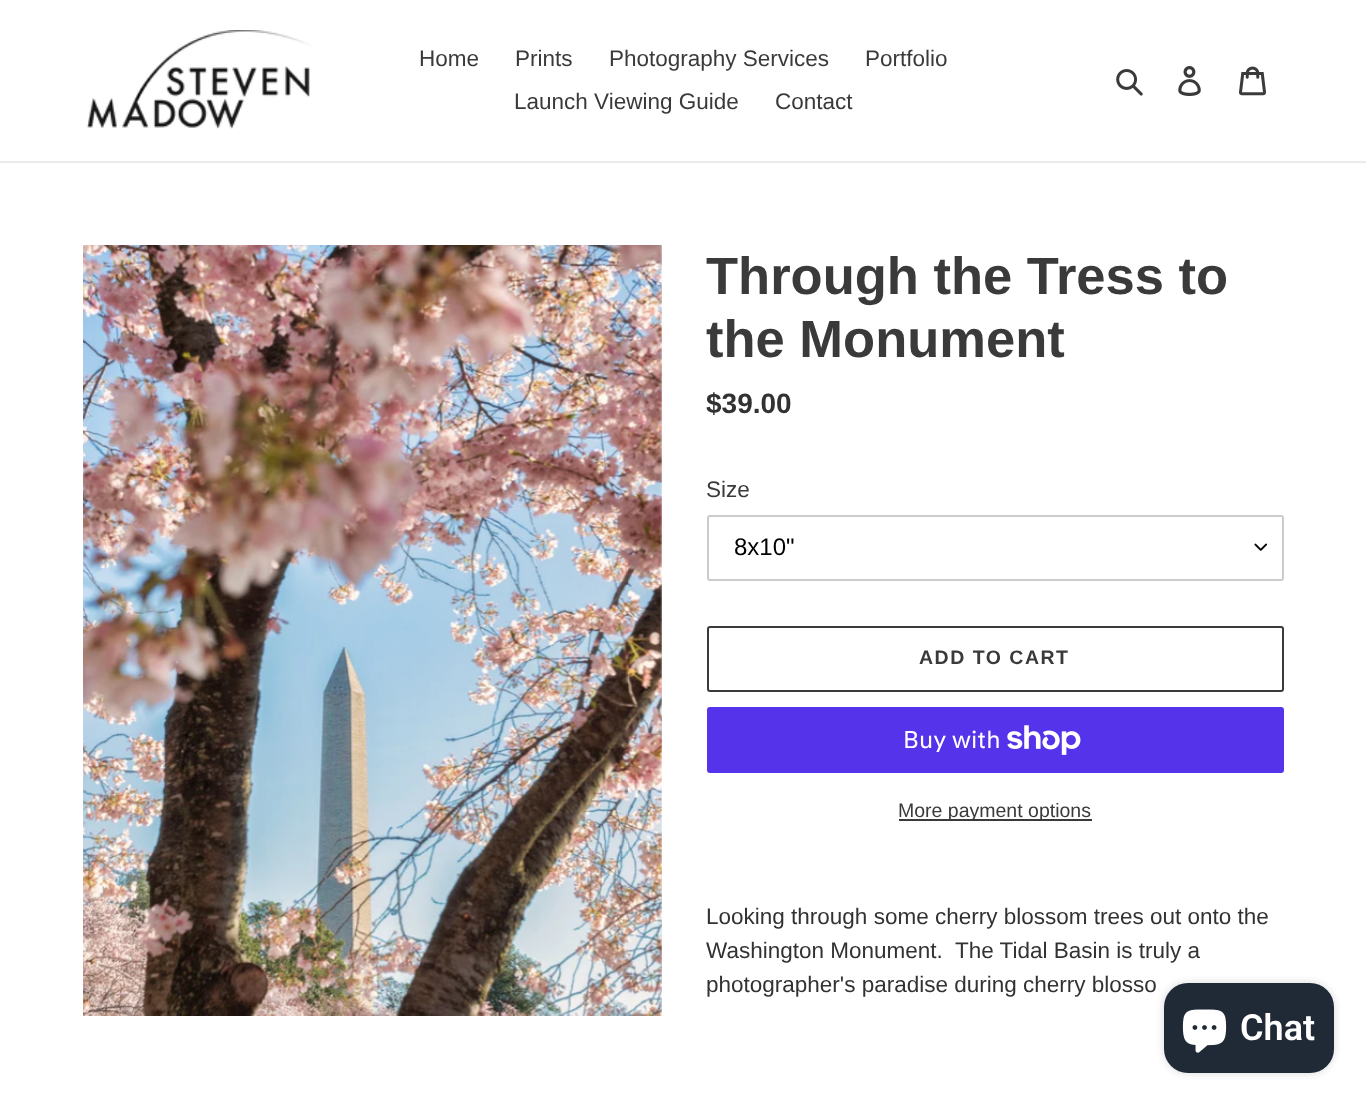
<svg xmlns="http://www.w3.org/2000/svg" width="1366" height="1103">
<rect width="100%" height="100%" fill="#fff"/>
<rect y="161" width="1366" height="2" fill="#ebebeb"/>
<image x="86" y="30" width="226" height="99" href="media/1.png"/>
<text x="419" y="66" style="font-family:Liberation Sans;font-size:22.5px;fill:#3a3a3a">Home</text>
<text x="515" y="66" style="font-family:Liberation Sans;font-size:22.5px;fill:#3a3a3a">Prints</text>
<text x="609" y="66" style="font-family:Liberation Sans;font-size:22.5px;fill:#3a3a3a">Photography Services</text>
<text x="865" y="66" style="font-family:Liberation Sans;font-size:22.5px;fill:#3a3a3a">Portfolio</text>
<text x="514" y="109" style="font-family:Liberation Sans;font-size:22.5px;fill:#3a3a3a">Launch Viewing Guide</text>
<text x="775" y="109" style="font-family:Liberation Sans;font-size:22.5px;fill:#3a3a3a">Contact</text>
<image x="1116" y="69" width="27" height="27" href="media/2.png"/>
<image x="1178" y="66" width="23" height="30" href="media/3.png"/>
<image x="1239" y="66" width="27" height="30" href="media/4.png"/>
<image x="83" y="245" width="579" height="771" href="media/5.png"/>
<text x="706" y="294" style="font-family:Liberation Sans;font-size:52.5px;font-weight:bold;fill:#3a3a3a">Through the Tress to</text>
<text x="706" y="357" style="font-family:Liberation Sans;font-size:52.5px;font-weight:bold;fill:#3a3a3a">the Monument</text>
<text x="706" y="413" style="font-family:Liberation Sans;font-size:28px;font-weight:bold;fill:#333232">$39.00</text>
<text x="706" y="497" style="font-family:Liberation Sans;font-size:22.5px;fill:#3a3a3a">Size</text>
<image x="1254" y="543" width="14" height="8" href="media/6.png"/>
<rect x="708" y="516" width="575" height="64" rx="2" fill="none" stroke="#ccc" stroke-width="2"/>
<text x="734" y="555" style="font-family:Liberation Sans;font-size:24px;fill:#000">8x10"</text>
<rect x="708" y="627" width="575" height="64" rx="2" fill="none" stroke="#3a3a3a" stroke-width="2"/>
<text x="919" y="664" style="font-family:Liberation Sans;font-size:19.5px;font-weight:bold;letter-spacing:1.5px;fill:#3a3a3a">ADD TO CART</text>
<rect x="707" y="707" width="577" height="66" rx="3" fill="#5433eb"/>
<text x="903" y="748" style="font-family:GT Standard;font-size:24px;fill:#fff">Buy with</text>
<image x="1007" y="725" width="74" height="30" href="media/7.png"/>
<rect x="899" y="819" width="193" height="2" fill="#3a3a3a"/>
<text x="898" y="817" style="font-family:Liberation Sans;font-size:19.5px;fill:#3a3a3a">More payment options</text>
<text x="706" y="924" style="font-family:Liberation Sans;font-size:22.5px;fill:#333232">Looking through some cherry blossom trees out onto the</text>
<text x="706" y="958" style="font-family:Liberation Sans;font-size:22.5px;fill:#333232" xml:space="preserve">Washington Monument.  The Tidal Basin is truly a</text>
<text x="706" y="992" style="font-family:Liberation Sans;font-size:22.5px;fill:#333232">photographer's paradise during cherry blosso</text>
<rect x="1164" y="983" width="170" height="90" rx="24" fill="#00000026" filter="blur(4px)"/>
<rect x="1164" y="983" width="170" height="90" rx="24" fill="#202a36"/>
<image x="1182" y="1009" width="45" height="44" href="media/8.png"/>
<text x="1240" y="1040" style="font-family:Roboto;font-size:36px;font-weight:600;fill:#fff">Chat</text>
</svg>
